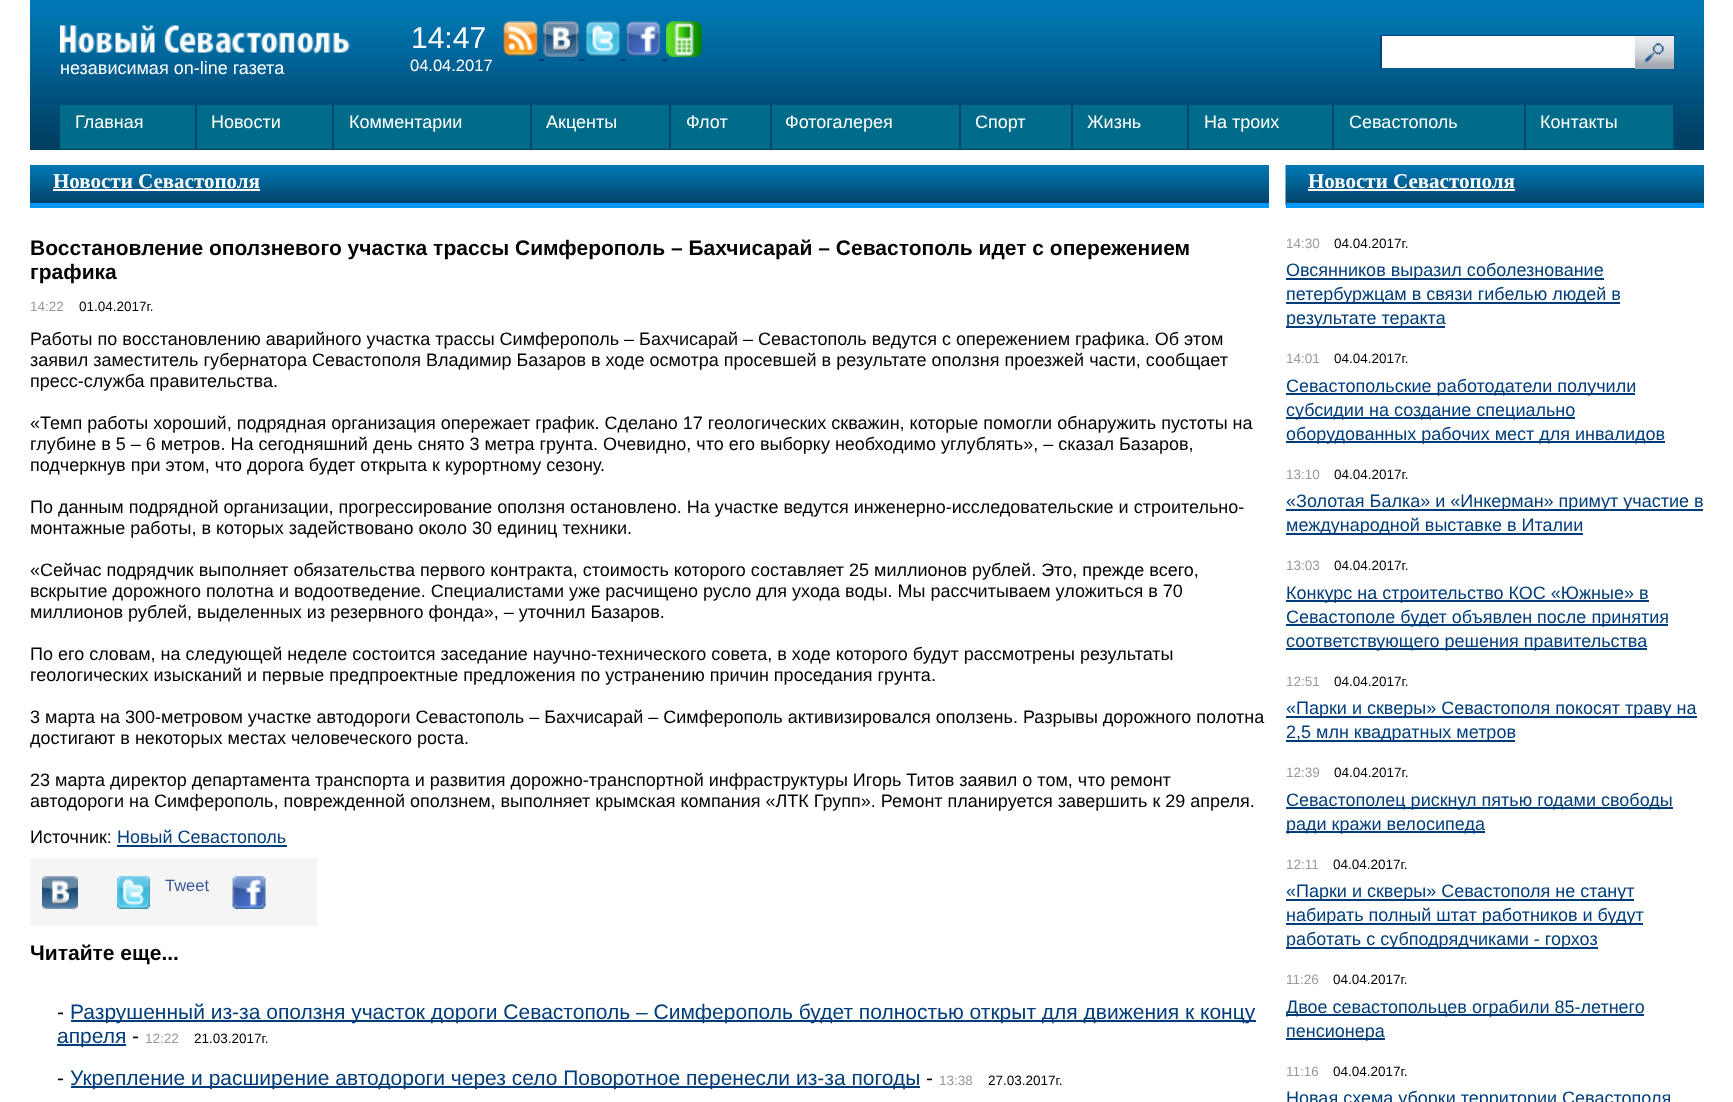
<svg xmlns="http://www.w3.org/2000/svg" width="1733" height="1102">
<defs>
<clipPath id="clip1"><rect x="1286" y="972" width="418" height="86"/></clipPath>
</defs>
<rect width="100%" height="100%" fill="#fff"/>
<image x="30" y="0" width="1674" height="150" href="media/1.png"/>
<image x="60" y="25" width="290" height="29" href="media/2.png"/>
<text x="411" y="48" style="font-family:Liberation Sans;font-size:30px;fill:#fff">14:47</text>
<text x="410" y="71" style="font-family:Liberation Sans;font-size:16.5px;fill:#fff">04.04.2017</text>
<image x="502" y="21" width="37" height="35" href="media/3.png"/>
<image x="543" y="21" width="36" height="36" href="media/4.png"/>
<image x="585" y="21" width="35" height="36" href="media/5.png"/>
<image x="625" y="21" width="36" height="36" href="media/6.png"/>
<image x="666" y="21" width="36" height="36" href="media/7.png"/>
<rect x="539" y="59" width="5" height="2" fill="#003d7a"/>
<rect x="579" y="59" width="6" height="2" fill="#003d7a"/>
<rect x="621" y="59" width="5" height="2" fill="#003d7a"/>
<rect x="662" y="59" width="5" height="2" fill="#003d7a"/>
<rect x="1380" y="35" width="294" height="1" fill="#05417d"/>
<rect x="1380" y="35" width="2" height="34" fill="#05417d"/>
<rect x="1382" y="36" width="253" height="32" fill="#fff"/>
<image x="1635" y="36" width="39" height="33" href="media/8.png"/>
<text x="60" y="74" style="font-family:Liberation Sans;font-size:18px;fill:#fff">независимая on-line газета</text>
<rect x="60" y="105" width="135" height="44" fill="#006c8a"/>
<rect x="195" y="105" width="2" height="45" fill="#00466e"/>
<text x="75" y="128" style="font-family:Liberation Sans;font-size:18px;fill:#fff">Главная</text>
<rect x="197" y="105" width="135" height="44" fill="#006c8a"/>
<rect x="332" y="105" width="2" height="45" fill="#00466e"/>
<text x="211" y="128" style="font-family:Liberation Sans;font-size:18px;fill:#fff">Новости</text>
<rect x="334" y="105" width="196" height="44" fill="#006c8a"/>
<rect x="530" y="105" width="2" height="45" fill="#00466e"/>
<text x="349" y="128" style="font-family:Liberation Sans;font-size:18px;fill:#fff">Комментарии</text>
<rect x="532" y="105" width="137" height="44" fill="#006c8a"/>
<rect x="669" y="105" width="2" height="45" fill="#00466e"/>
<text x="546" y="128" style="font-family:Liberation Sans;font-size:18px;fill:#fff">Акценты</text>
<rect x="671" y="105" width="99" height="44" fill="#006c8a"/>
<rect x="770" y="105" width="2" height="45" fill="#00466e"/>
<text x="686" y="128" style="font-family:Liberation Sans;font-size:18px;fill:#fff">Флот</text>
<rect x="772" y="105" width="187" height="44" fill="#006c8a"/>
<rect x="959" y="105" width="2" height="45" fill="#00466e"/>
<text x="785" y="128" style="font-family:Liberation Sans;font-size:18px;fill:#fff">Фотогалерея</text>
<rect x="961" y="105" width="110" height="44" fill="#006c8a"/>
<rect x="1071" y="105" width="2" height="45" fill="#00466e"/>
<text x="975" y="128" style="font-family:Liberation Sans;font-size:18px;fill:#fff">Спорт</text>
<rect x="1073" y="105" width="114" height="44" fill="#006c8a"/>
<rect x="1187" y="105" width="2" height="45" fill="#00466e"/>
<text x="1087" y="128" style="font-family:Liberation Sans;font-size:18px;fill:#fff">Жизнь</text>
<rect x="1189" y="105" width="143" height="44" fill="#006c8a"/>
<rect x="1332" y="105" width="2" height="45" fill="#00466e"/>
<text x="1204" y="128" style="font-family:Liberation Sans;font-size:18px;fill:#fff">На троих</text>
<rect x="1334" y="105" width="190" height="44" fill="#006c8a"/>
<rect x="1524" y="105" width="2" height="45" fill="#00466e"/>
<text x="1349" y="128" style="font-family:Liberation Sans;font-size:18px;fill:#fff">Севастополь</text>
<rect x="1526" y="105" width="147" height="44" fill="#006c8a"/>
<rect x="1673" y="105" width="2" height="45" fill="#00466e"/>
<text x="1540" y="128" style="font-family:Liberation Sans;font-size:18px;fill:#fff">Контакты</text>
<image x="30" y="165" width="1239" height="38" href="media/9.png"/>
<rect x="30" y="203" width="1239" height="5" fill="#009aff"/>
<text x="53" y="188" style="font-family:Liberation Serif;font-size:21px;font-weight:bold;fill:#fff">Новости Севастополя</text>
<rect x="53" y="189" width="207" height="2" fill="#fff"/>
<text x="30" y="255" style="font-family:Liberation Sans;font-size:21px;font-weight:bold;fill:#000">Восстановление оползневого участка трассы Симферополь – Бахчисарай – Севастополь идет с опережением</text>
<text x="30" y="279" style="font-family:Liberation Sans;font-size:21px;font-weight:bold;fill:#000">графика</text>
<text x="30" y="311" style="font-family:Liberation Sans;font-size:13.5px;fill:#999">14:22</text>
<text x="79" y="311" style="font-family:Liberation Sans;font-size:13.5px;fill:#000">01.04.2017г.</text>
<text x="30" y="345" style="font-family:Liberation Sans;font-size:18px;fill:#000">Работы по восстановлению аварийного участка трассы Симферополь – Бахчисарай – Севастополь ведутся с опережением графика. Об этом</text>
<text x="30" y="366" style="font-family:Liberation Sans;font-size:18px;fill:#000">заявил заместитель губернатора Севастополя Владимир Базаров в ходе осмотра просевшей в результате оползня проезжей части, сообщает</text>
<text x="30" y="387" style="font-family:Liberation Sans;font-size:18px;fill:#000">пресс-служба правительства.</text>
<text x="30" y="429" style="font-family:Liberation Sans;font-size:18px;fill:#000">«Темп работы хороший, подрядная организация опережает график. Сделано 17 геологических скважин, которые помогли обнаружить пустоты на</text>
<text x="30" y="450" style="font-family:Liberation Sans;font-size:18px;fill:#000">глубине в 5 – 6 метров. На сегодняшний день снято 3 метра грунта. Очевидно, что его выборку необходимо углублять», – сказал Базаров,</text>
<text x="30" y="471" style="font-family:Liberation Sans;font-size:18px;fill:#000">подчеркнув при этом, что дорога будет открыта к курортному сезону.</text>
<text x="30" y="513" style="font-family:Liberation Sans;font-size:18px;fill:#000">По данным подрядной организации, прогрессирование оползня остановлено. На участке ведутся инженерно-исследовательские и строительно-</text>
<text x="30" y="534" style="font-family:Liberation Sans;font-size:18px;fill:#000">монтажные работы, в которых задействовано около 30 единиц техники.</text>
<text x="30" y="576" style="font-family:Liberation Sans;font-size:18px;fill:#000">«Сейчас подрядчик выполняет обязательства первого контракта, стоимость которого составляет 25 миллионов рублей. Это, прежде всего,</text>
<text x="30" y="597" style="font-family:Liberation Sans;font-size:18px;fill:#000">вскрытие дорожного полотна и водоотведение. Специалистами уже расчищено русло для ухода воды. Мы рассчитываем уложиться в 70</text>
<text x="30" y="618" style="font-family:Liberation Sans;font-size:18px;fill:#000">миллионов рублей, выделенных из резервного фонда», – уточнил Базаров.</text>
<text x="30" y="660" style="font-family:Liberation Sans;font-size:18px;fill:#000">По его словам, на следующей неделе состоится заседание научно-технического совета, в ходе которого будут рассмотрены результаты</text>
<text x="30" y="681" style="font-family:Liberation Sans;font-size:18px;fill:#000">геологических изысканий и первые предпроектные предложения по устранению причин проседания грунта.</text>
<text x="30" y="723" style="font-family:Liberation Sans;font-size:18px;fill:#000">3 марта на 300-метровом участке автодороги Севастополь – Бахчисарай – Симферополь активизировался оползень. Разрывы дорожного полотна</text>
<text x="30" y="744" style="font-family:Liberation Sans;font-size:18px;fill:#000">достигают в некоторых местах человеческого роста.</text>
<text x="30" y="786" style="font-family:Liberation Sans;font-size:18px;fill:#000">23 марта директор департамента транспорта и развития дорожно-транспортной инфраструктуры Игорь Титов заявил о том, что ремонт</text>
<text x="30" y="807" style="font-family:Liberation Sans;font-size:18px;fill:#000">автодороги на Симферополь, поврежденной оползнем, выполняет крымская компания «ЛТК Групп». Ремонт планируется завершить к 29 апреля.</text>
<text x="30" y="843" style="font-family:Liberation Sans;font-size:18px;fill:#000">Источник:</text>
<text x="117" y="843" style="font-family:Liberation Sans;font-size:18px;fill:#003d7a">Новый Севастополь</text>
<rect x="117" y="845" width="170" height="2" fill="#003d7a"/>
<rect x="30" y="858" width="287" height="68" fill="#f5f5f5"/>
<image x="42" y="876" width="36" height="33" href="media/10.png"/>
<image x="117" y="876" width="33" height="33" href="media/11.png"/>
<text x="165" y="891" style="font-family:Liberation Sans;font-size:16.5px;fill:#3b5998">Tweet</text>
<image x="232" y="876" width="34" height="33" href="media/12.png"/>
<text x="30" y="960" style="font-family:Liberation Sans;font-size:21px;font-weight:bold;fill:#000">Читайте еще...</text>
<text x="57" y="1019" style="font-family:Liberation Sans;font-size:21px;fill:#000">-</text>
<rect x="71" y="1020" width="1185" height="2" fill="#003d7a"/>
<text x="70" y="1019" style="font-family:Liberation Sans;font-size:21px;fill:#003d7a">Разрушенный из-за оползня участок дороги Севастополь – Симферополь будет полностью открыт для движения к концу</text>
<rect x="57" y="1044" width="69" height="2" fill="#003d7a"/>
<text x="57" y="1043" style="font-family:Liberation Sans;font-size:21px;fill:#003d7a">апреля</text>
<text x="132" y="1043" style="font-family:Liberation Sans;font-size:21px;fill:#000">-</text>
<text x="145" y="1043" style="font-family:Liberation Sans;font-size:13.5px;fill:#999">12:22</text>
<text x="194" y="1043" style="font-family:Liberation Sans;font-size:13.5px;fill:#000">21.03.2017г.</text>
<text x="57" y="1085" style="font-family:Liberation Sans;font-size:21px;fill:#000">-</text>
<rect x="71" y="1086" width="849" height="2" fill="#003d7a"/>
<text x="70" y="1085" style="font-family:Liberation Sans;font-size:21px;fill:#003d7a">Укрепление и расширение автодороги через село Поворотное перенесли из-за погоды</text>
<text x="926" y="1085" style="font-family:Liberation Sans;font-size:21px;fill:#000">-</text>
<text x="939" y="1085" style="font-family:Liberation Sans;font-size:13.5px;fill:#999">13:38</text>
<text x="988" y="1085" style="font-family:Liberation Sans;font-size:13.5px;fill:#000">27.03.2017г.</text>
<image x="1285" y="165" width="419" height="41" href="media/13.png"/>
<rect x="1286" y="203" width="418" height="5" fill="#009aff"/>
<text x="1308" y="188" style="font-family:Liberation Serif;font-size:21px;font-weight:bold;fill:#fff">Новости Севастополя</text>
<rect x="1308" y="189" width="207" height="2" fill="#fff"/>
<text x="1286" y="248" style="font-family:Liberation Sans;font-size:13.5px;fill:#999">14:30</text>
<text x="1334" y="248" style="font-family:Liberation Sans;font-size:13.5px;fill:#000">04.04.2017г.</text>
<rect x="1286" y="278" width="318" height="2" fill="#003d7a"/>
<text x="1286" y="276" style="font-family:Liberation Sans;font-size:18px;fill:#003d7a">Овсянников выразил соболезнование</text>
<rect x="1286" y="302" width="334" height="2" fill="#003d7a"/>
<text x="1286" y="300" style="font-family:Liberation Sans;font-size:18px;fill:#003d7a">петербуржцам в связи гибелью людей в</text>
<rect x="1286" y="326" width="159" height="2" fill="#003d7a"/>
<text x="1286" y="324" style="font-family:Liberation Sans;font-size:18px;fill:#003d7a">результате теракта</text>
<text x="1286" y="363" style="font-family:Liberation Sans;font-size:13.5px;fill:#999">14:01</text>
<text x="1334" y="363" style="font-family:Liberation Sans;font-size:13.5px;fill:#000">04.04.2017г.</text>
<rect x="1286" y="393" width="349" height="2" fill="#003d7a"/>
<text x="1286" y="392" style="font-family:Liberation Sans;font-size:18px;fill:#003d7a">Севастопольские работодатели получили</text>
<rect x="1286" y="417" width="289" height="2" fill="#003d7a"/>
<text x="1286" y="416" style="font-family:Liberation Sans;font-size:18px;fill:#003d7a">субсидии на создание специально</text>
<rect x="1286" y="441" width="379" height="2" fill="#003d7a"/>
<text x="1286" y="440" style="font-family:Liberation Sans;font-size:18px;fill:#003d7a">оборудованных рабочих мест для инвалидов</text>
<text x="1286" y="479" style="font-family:Liberation Sans;font-size:13.5px;fill:#999">13:10</text>
<text x="1334" y="479" style="font-family:Liberation Sans;font-size:13.5px;fill:#000">04.04.2017г.</text>
<rect x="1286" y="509" width="417" height="2" fill="#003d7a"/>
<text x="1286" y="507" style="font-family:Liberation Sans;font-size:18px;fill:#003d7a">«Золотая Балка» и «Инкерман» примут участие в</text>
<rect x="1286" y="533" width="297" height="2" fill="#003d7a"/>
<text x="1286" y="531" style="font-family:Liberation Sans;font-size:18px;fill:#003d7a">международной выставке в Италии</text>
<text x="1286" y="570" style="font-family:Liberation Sans;font-size:13.5px;fill:#999">13:03</text>
<text x="1334" y="570" style="font-family:Liberation Sans;font-size:13.5px;fill:#000">04.04.2017г.</text>
<rect x="1286" y="600" width="363" height="2" fill="#003d7a"/>
<text x="1286" y="599" style="font-family:Liberation Sans;font-size:18px;fill:#003d7a">Конкурс на строительство КОС «Южные» в</text>
<rect x="1286" y="624" width="382" height="2" fill="#003d7a"/>
<text x="1286" y="623" style="font-family:Liberation Sans;font-size:18px;fill:#003d7a">Севастополе будет объявлен после принятия</text>
<rect x="1286" y="648" width="361" height="2" fill="#003d7a"/>
<text x="1286" y="647" style="font-family:Liberation Sans;font-size:18px;fill:#003d7a">соответствующего решения правительства</text>
<text x="1286" y="686" style="font-family:Liberation Sans;font-size:13.5px;fill:#999">12:51</text>
<text x="1334" y="686" style="font-family:Liberation Sans;font-size:13.5px;fill:#000">04.04.2017г.</text>
<rect x="1286" y="716" width="411" height="2" fill="#003d7a"/>
<text x="1286" y="714" style="font-family:Liberation Sans;font-size:18px;fill:#003d7a">«Парки и скверы» Севастополя покосят траву на</text>
<rect x="1286" y="740" width="229" height="2" fill="#003d7a"/>
<text x="1286" y="738" style="font-family:Liberation Sans;font-size:18px;fill:#003d7a">2,5 млн квадратных метров</text>
<text x="1286" y="777" style="font-family:Liberation Sans;font-size:13.5px;fill:#999">12:39</text>
<text x="1334" y="777" style="font-family:Liberation Sans;font-size:13.5px;fill:#000">04.04.2017г.</text>
<rect x="1286" y="807" width="387" height="2" fill="#003d7a"/>
<text x="1286" y="806" style="font-family:Liberation Sans;font-size:18px;fill:#003d7a">Севастополец рискнул пятью годами свободы</text>
<rect x="1286" y="831" width="199" height="2" fill="#003d7a"/>
<text x="1286" y="830" style="font-family:Liberation Sans;font-size:18px;fill:#003d7a">ради кражи велосипеда</text>
<text x="1286" y="869" style="font-family:Liberation Sans;font-size:13.5px;fill:#999">12:11</text>
<text x="1333" y="869" style="font-family:Liberation Sans;font-size:13.5px;fill:#000">04.04.2017г.</text>
<rect x="1286" y="899" width="348" height="2" fill="#003d7a"/>
<text x="1286" y="897" style="font-family:Liberation Sans;font-size:18px;fill:#003d7a">«Парки и скверы» Севастополя не станут</text>
<rect x="1286" y="923" width="357" height="2" fill="#003d7a"/>
<text x="1286" y="921" style="font-family:Liberation Sans;font-size:18px;fill:#003d7a">набирать полный штат работников и будут</text>
<rect x="1286" y="947" width="312" height="2" fill="#003d7a"/>
<text x="1286" y="945" style="font-family:Liberation Sans;font-size:18px;fill:#003d7a">работать с субподрядчиками - горхоз</text>
<text x="1286" y="984" style="font-family:Liberation Sans;font-size:13.5px;fill:#999">11:26</text>
<text x="1333" y="984" style="font-family:Liberation Sans;font-size:13.5px;fill:#000">04.04.2017г.</text>
<rect x="1286" y="1014" width="358" height="2" fill="#003d7a"/>
<g clip-path="url(#clip1)">
<text x="1286" y="1013" style="font-family:Liberation Sans;font-size:18px;fill:#003d7a">Двое севастопольцев ограбили 85-летнего</text>
</g>
<rect x="1286" y="1038" width="99" height="2" fill="#003d7a"/>
<text x="1286" y="1037" style="font-family:Liberation Sans;font-size:18px;fill:#003d7a">пенсионера</text>
<text x="1286" y="1076" style="font-family:Liberation Sans;font-size:13.5px;fill:#999">11:16</text>
<text x="1333" y="1076" style="font-family:Liberation Sans;font-size:13.5px;fill:#000">04.04.2017г.</text>
<text x="1286" y="1104" style="font-family:Liberation Sans;font-size:18px;fill:#003d7a">Новая схема уборки территории Севастополя</text>
</svg>
